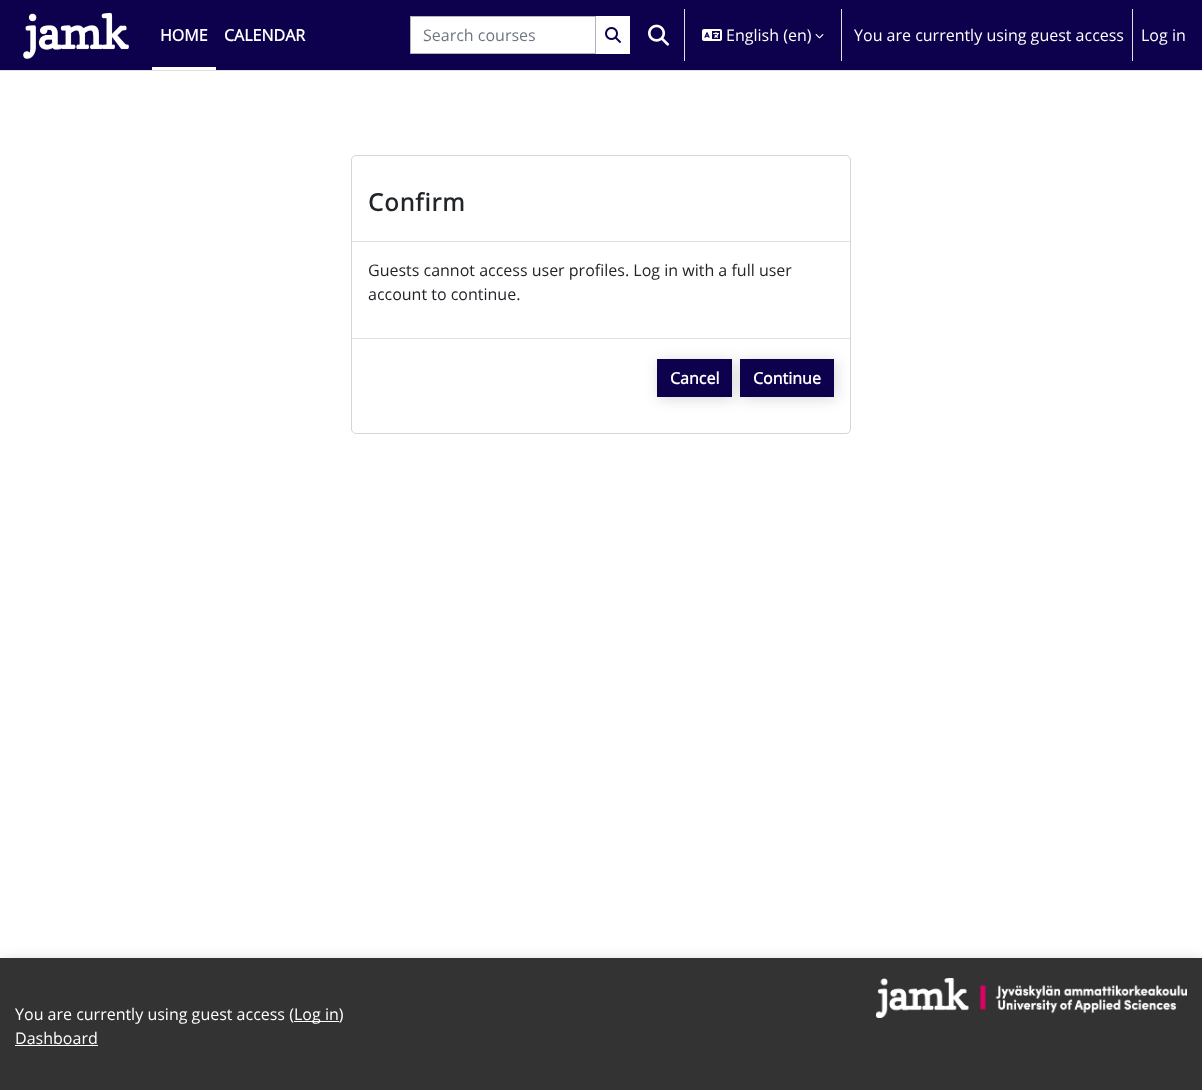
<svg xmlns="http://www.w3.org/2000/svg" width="1202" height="1090">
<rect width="100%" height="100%" fill="#fff"/>
<rect width="1202" height="70" fill="#0d004c"/>
<rect y="70" width="1202" height="1" fill="#dee2e6"/>
<image x="23" y="12" width="106" height="47" href="media/1.png"/>
<rect x="152" y="67" width="64" height="3" fill="#fff"/>
<text x="160" y="41" style="font-family:Open Sans;font-size:16px;font-weight:bold;fill:#fff">HOME</text>
<text x="224" y="41" style="font-family:Open Sans;font-size:16px;font-weight:bold;fill:#fff">CALENDAR</text>
<rect x="410.5" y="16.5" width="185" height="37" fill="#fff" stroke="#adb5bd"/>
<text x="423" y="41" style="font-family:Open Sans;font-size:16px;fill:#6f7680">Search courses</text>
<rect x="596" y="16" width="34" height="38" fill="#fff"/>
<image x="605" y="27" width="16" height="16" href="media/2.png"/>
<image x="648" y="24" width="21" height="22" href="media/3.png"/>
<rect x="684" y="9" width="1" height="52" fill="#dee2e6"/>
<image x="702" y="29" width="20" height="12" href="media/4.png"/>
<text x="726" y="41" style="font-family:Open Sans;font-size:16px;fill:#fff">English (en)</text>
<image x="815" y="34" width="9" height="5" href="media/5.png"/>
<rect x="841" y="9" width="1" height="52" fill="#dee2e6"/>
<text x="854" y="41" style="font-family:Open Sans;font-size:16px;fill:#fff">You are currently using guest access</text>
<rect x="1132" y="9" width="1" height="52" fill="#dee2e6"/>
<text x="1141" y="41" style="font-family:Open Sans;font-size:16px;fill:#fff">Log in</text>
<rect x="351.5" y="155.5" width="499" height="278" rx="4.5" fill="none" stroke="#d6d6d6"/>
<rect x="352" y="241" width="498" height="1" fill="#dee2e6"/>
<text x="368" y="211" style="font-family:Open Sans;font-size:24px;font-weight:bold;letter-spacing:1px;fill:#212529">Confirm</text>
<text x="368" y="276" style="font-family:Open Sans;font-size:16px;fill:#212529">Guests cannot access user profiles. Log in with a full user</text>
<text x="368" y="300" style="font-family:Open Sans;font-size:16px;fill:#212529">account to continue.</text>
<rect x="352" y="338" width="498" height="1" fill="#dee2e6"/>
<rect x="659" y="361" width="75" height="38" fill="#00000026" filter="blur(7px)"/>
<rect x="657" y="359" width="75" height="38" fill="#0d004c"/>
<text x="670" y="384" style="font-family:Open Sans;font-size:16px;font-weight:bold;fill:#fff">Cancel</text>
<rect x="742" y="361" width="94" height="38" fill="#00000026" filter="blur(7px)"/>
<rect x="740" y="359" width="94" height="38" fill="#0d004c"/>
<text x="753" y="384" style="font-family:Open Sans;font-size:16px;font-weight:bold;fill:#fff">Continue</text>
<rect x="2" y="960" width="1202" height="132" fill="#00000026" filter="blur(7px)"/>
<rect y="958" width="1202" height="132" fill="#333"/>
<image x="876" y="978" width="311" height="40" href="media/6.png"/>
<text x="15" y="1020" style="font-family:Open Sans;font-size:16px;fill:#fff">You are currently using guest access (</text>
<rect x="294" y="1021" width="45" height="1" fill="#fff"/>
<text x="294" y="1020" style="font-family:Open Sans;font-size:16px;fill:#fff">Log in)</text>
<text x="15" y="1044" style="font-family:Open Sans;font-size:16px;fill:#fff">Dashboard</text>
<rect x="15" y="1045" width="83" height="1" fill="#fff"/>
</svg>
